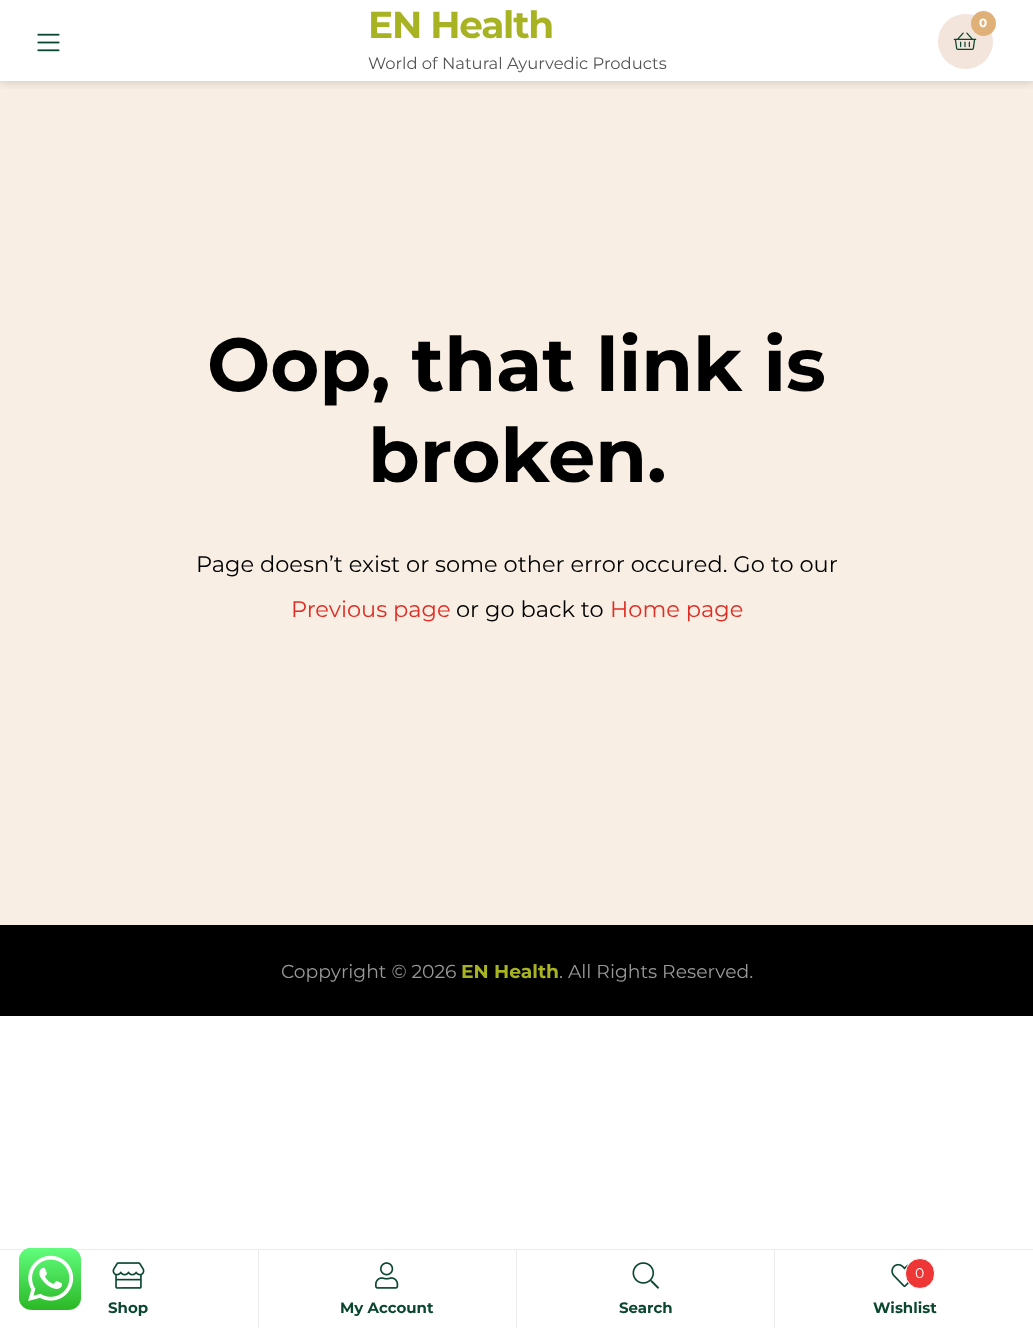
<svg xmlns="http://www.w3.org/2000/svg" width="1033" height="1328">
<defs>
<clipPath id="clip1"><rect x="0" y="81" width="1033" height="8"/></clipPath>
</defs>
<rect width="100%" height="100%" fill="#fff"/>
<rect y="1249" width="1033" height="1" fill="#ebebeb"/>
<image x="19" y="1248" width="62" height="62" href="media/1.png"/>
<rect y="81" width="1033" height="844" fill="#f8eee3"/>
<g clip-path="url(#clip1)">
<rect width="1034" height="81" fill="#00000033" filter="blur(6px)"/>
</g>
<text x="368" y="38" style="font-family:Montserrat;font-size:37.5px;font-weight:bold;letter-spacing:-1.25px;fill:#a8b324">EN Health</text>
<text x="368" y="69" style="font-family:Montserrat;font-size:16.4px;fill:#555">World of Natural Ayurvedic Products</text>
<circle cx="965.5" cy="41.5" r="27.5" fill="#f3e4dc"/>
<image x="953" y="32" width="24" height="18" href="media/2.png"/>
<circle cx="983.5" cy="23.5" r="12.5" fill="#dfb178"/>
<text x="979" y="27" style="font-family:Montserrat;font-size:12px;font-weight:bold;fill:#fff">0</text>
<image x="37" y="33" width="23" height="19" href="media/3.png"/>
<text x="207" y="391" style="font-family:Montserrat;font-size:75px;font-weight:bold;fill:#000">Oop, that link is</text>
<text x="368" y="482" style="font-family:Montserrat;font-size:75px;font-weight:bold;fill:#000">broken.</text>
<text x="196" y="572" style="font-family:Montserrat;font-size:22.5px;fill:#000">Page doesn’t exist or some other error occured. Go to our</text>
<text x="291" y="617" style="font-family:Montserrat;font-size:22.5px;fill:#de2d24">Previous page</text>
<text x="456" y="617" style="font-family:Montserrat;font-size:22.5px;fill:#000">or go back to</text>
<text x="610" y="617" style="font-family:Montserrat;font-size:22.5px;fill:#de2d24">Home page</text>
<rect y="925" width="1033" height="91" fill="#000"/>
<text x="281" y="978" style="font-family:Montserrat;font-size:18.75px;fill:#999">Coppyright © 2026</text>
<text x="461" y="978" style="font-family:Montserrat;font-size:18.75px;font-weight:bold;fill:#a8b324">EN Health</text>
<text x="559" y="978" style="font-family:Montserrat;font-size:18.75px;fill:#999">. All Rights Reserved.</text>
<rect x="258" y="1249" width="1" height="79" fill="#ebebeb"/>
<image x="112" y="1262" width="33" height="27" href="media/4.png"/>
<text x="108" y="1313" style="font-family:Montserrat;font-size:15px;font-weight:bold;fill:#0a472e">Shop</text>
<rect x="516" y="1249" width="1" height="79" fill="#ebebeb"/>
<image x="375" y="1262" width="24" height="27" href="media/5.png"/>
<text x="340" y="1313" style="font-family:Montserrat;font-size:15px;font-weight:bold;fill:#0a472e">My Account</text>
<rect x="774" y="1249" width="1" height="79" fill="#ebebeb"/>
<image x="632" y="1262" width="27" height="27" href="media/6.png"/>
<text x="619" y="1313" style="font-family:Montserrat;font-size:15px;font-weight:bold;fill:#0a472e">Search</text>
<image x="891" y="1263" width="18" height="25" href="media/7.png"/>
<rect x="905.5" y="1258.5" width="29" height="30" rx="14.5" fill="#ef3636" stroke="#fff"/>
<text x="915" y="1278" style="font-family:Montserrat;font-size:14px;fill:#fff">0</text>
<text x="873" y="1313" style="font-family:Montserrat;font-size:15px;font-weight:bold;fill:#0a472e">Wishlist</text>
</svg>
